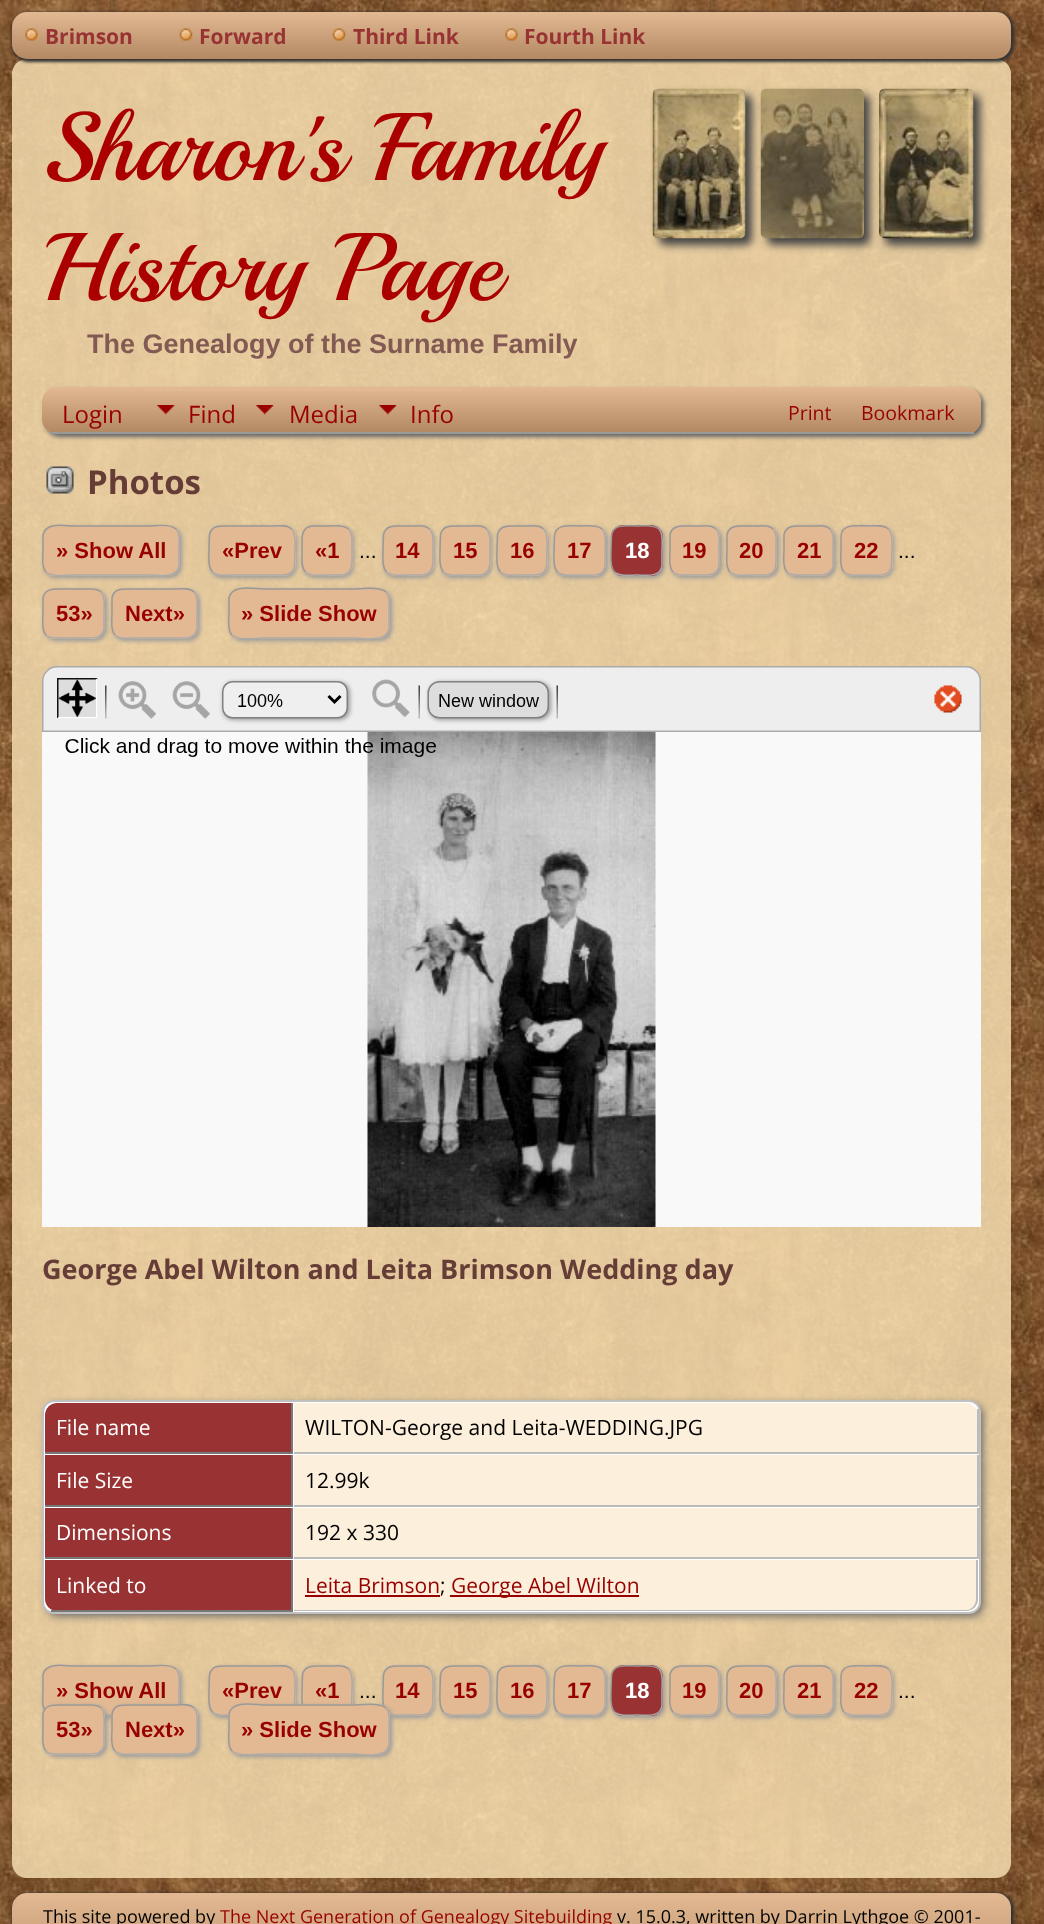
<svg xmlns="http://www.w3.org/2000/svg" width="1044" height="1924">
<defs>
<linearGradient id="g1" gradientUnits="userSpaceOnUse" x1="512" y1="12" x2="512" y2="59"><stop offset="0" stop-color="#e2b993"/><stop offset="1" stop-color="#b28963"/></linearGradient>
<clipPath id="clip1"><rect x="42" y="387" width="939" height="47" rx="15"/></clipPath>
<linearGradient id="g2" gradientUnits="userSpaceOnUse" x1="512" y1="387" x2="512" y2="432"><stop offset="0" stop-color="#e2b993"/><stop offset="1" stop-color="#b28963"/></linearGradient>
<linearGradient id="g3" gradientUnits="userSpaceOnUse" x1="512" y1="1893" x2="512" y2="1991"><stop offset="0" stop-color="#e2b993"/><stop offset="1" stop-color="#b28963"/></linearGradient>
</defs>
<rect width="100%" height="100%" fill="#fff"/>
<image x="0" y="0" width="1044" height="1924" href="media/1.png"/>
<rect x="12" y="12" width="1002" height="50" rx="17" fill="#333" filter="blur(1.5px)"/>
<rect x="12" y="12" width="999" height="47" rx="15" fill="url(#g1)"/>
<image x="25" y="28" width="13" height="13" href="media/2.png"/>
<text x="45" y="44" style="font-family:Open Sans;font-size:21px;font-weight:bold;fill:#933">Brimson</text>
<image x="179" y="28" width="14" height="13" href="media/3.png"/>
<text x="199" y="44" style="font-family:Open Sans;font-size:21px;font-weight:bold;fill:#933">Forward</text>
<image x="332" y="28" width="14" height="13" href="media/4.png"/>
<text x="353" y="44" style="font-family:Open Sans;font-size:21px;font-weight:bold;fill:#933">Third Link</text>
<image x="505" y="28" width="13" height="13" href="media/2.png"/>
<text x="524" y="44" style="font-family:Open Sans;font-size:21px;font-weight:bold;fill:#933">Fourth Link</text>
<text x="42" y="180" style="font-family:Playball;font-size:96px;fill:#a00">Sharon's Family</text>
<text x="42" y="300" style="font-family:Playball;font-size:96px;fill:#a00">History Page</text>
<rect x="885" y="95" width="95" height="150" rx="6" fill="#444" filter="blur(4.5px)"/>
<image x="879" y="88" width="95" height="151" href="media/7.png"/>
<rect x="767" y="95" width="103" height="150" rx="6" fill="#444" filter="blur(4.5px)"/>
<image x="760" y="88" width="104" height="151" href="media/6.png"/>
<rect x="659" y="95" width="93" height="150" rx="6" fill="#444" filter="blur(4.5px)"/>
<image x="652" y="88" width="94" height="151" href="media/5.png"/>
<text x="87" y="353" style="font-family:Liberation Sans;font-size:27px;font-weight:bold;fill:#825953">The Genealogy of the Surname Family</text>
<rect x="45" y="390" width="939" height="47" rx="15" fill="#666" filter="blur(2px)"/>
<rect x="42" y="387" width="939" height="47" rx="15" fill="#e2b993"/>
<g clip-path="url(#clip1)">
<path d="M57 387h909c8.5 0 15 6.5 15 15v30h-939v-30c0-8.5 6.5-15 15-15z" fill="url(#g2)"/>
</g>
<rect x="50" y="432" width="924" height="2" fill="#999"/>
<text x="62" y="423" style="font-family:Open Sans;font-size:24px;fill:#900">Login</text>
<rect x="144" y="389" width="318" height="2" fill="#e2b993"/>
<image x="144" y="391" width="99" height="41" href="media/8.png"/>
<text x="188" y="423" style="font-family:Open Sans;font-size:24px;fill:#900">Find</text>
<image x="243" y="391" width="123" height="41" href="media/9.png"/>
<text x="289" y="423" style="font-family:Open Sans;font-size:24px;fill:#900">Media</text>
<image x="366" y="391" width="96" height="41" href="media/10.png"/>
<text x="410" y="423" style="font-family:Open Sans;font-size:24px;fill:#900">Info</text>
<text x="788" y="420" style="font-family:Open Sans;font-size:19.5px;fill:#900">Print</text>
<text x="861" y="420" style="font-family:Open Sans;font-size:19.5px;fill:#900">Bookmark</text>
<image x="46" y="466" width="28" height="28" href="media/11.png"/>
<text x="87" y="494" style="font-family:Open Sans;font-size:33px;font-weight:bold;fill:#663c36">Photos</text>
<rect x="44" y="527" width="138" height="51" rx="12" fill="#999" filter="blur(2px)"/>
<rect x="42" y="525" width="138" height="51" rx="12" fill="#e2b993"/>
<path d="M176 529c5 5 3 15 3 21.5v15.5c-2.5 13.5-22 9-30 9h-76c-5.5 0-20.5 3-27-3" fill="none" stroke="#aaa" stroke-width="1.5"/>
<path d="M46 572c-5-5-3-15-3-21.5v-15.5c2.5-13.5 22-9 30-9h76c5.5 0 20.5-3 27 3" fill="none" stroke="#999" stroke-width="1.5"/>
<text x="56" y="558" style="font-family:Liberation Sans;font-size:22px;font-weight:bold;fill:#900">» Show All</text>
<rect x="210" y="527" width="87" height="51" rx="12" fill="#999" filter="blur(2px)"/>
<rect x="209" y="525" width="87" height="51" rx="12" fill="#e2b993"/>
<path d="M291.5 529c5 5 3.5 15 3.5 21.5l-.5 15.5c-2 11-13 9-21.5 9h-42c-6 0-13.5 2-18.5-3" fill="none" stroke="#aaa" stroke-width="1.5"/>
<path d="M212.5 572c-5-5-3.5-15-3.5-21.5l.5-15.5c2-11 13-9 21.5-9h42c6 0 13.5-2 18.5 3" fill="none" stroke="#999" stroke-width="1.5"/>
<text x="222" y="558" style="font-family:Liberation Sans;font-size:22px;font-weight:bold;fill:#900">«Prev</text>
<rect x="303" y="527" width="51" height="51" rx="12" fill="#999" filter="blur(2px)"/>
<rect x="302" y="525" width="51" height="51" rx="12" fill="#e2b993"/>
<path d="M348.5 529c4.5 4.5 3.5 11 3.5 17v13.5c0 7-1 14-9.5 15.5h-15.5c-6.5 0-16.5 2-21.5-3" fill="none" stroke="#aaa" stroke-width="1.5"/>
<path d="M305.5 572c-4.5-4.5-3.5-11-3.5-17v-13.5c0-7 1-14 9.5-15.5h15.5c6.5 0 16.5-2 21.5 3" fill="none" stroke="#999" stroke-width="1.5"/>
<text x="315" y="558" style="font-family:Liberation Sans;font-size:22px;font-weight:bold;fill:#900">«1</text>
<text x="359" y="558" style="font-family:Liberation Sans;font-size:21px;fill:#000">...</text>
<rect x="384" y="527" width="51" height="51" rx="12" fill="#999" filter="blur(2px)"/>
<rect x="383" y="525" width="51" height="51" rx="12" fill="#e2b993"/>
<path d="M429.5 529c4.5 4.5 3.5 11 3.5 17v13.5c0 7-1 14-9.5 15.5h-15.5c-6.5 0-16.5 2-21.5-3" fill="none" stroke="#aaa" stroke-width="1.5"/>
<path d="M386.5 572c-5-5-3.5-15-3.5-21.5l.5-15.5c1.5-8.5 8.5-9 15.5-9h13.5c6 0 12.5-1.5 17 3" fill="none" stroke="#999" stroke-width="1.5"/>
<text x="395" y="558" style="font-family:Liberation Sans;font-size:22px;font-weight:bold;fill:#900">14</text>
<rect x="441" y="527" width="51" height="51" rx="12" fill="#999" filter="blur(2px)"/>
<rect x="440" y="525" width="51" height="51" rx="12" fill="#e2b993"/>
<path d="M486.5 529c4.5 4.5 3.5 11 3.5 17v13.5c0 7-1 14-9.5 15.5h-15.5c-6.5 0-16.5 2-21.5-3" fill="none" stroke="#aaa" stroke-width="1.5"/>
<path d="M443.5 572c-5-5-3.5-15-3.5-21.5l.5-15.5c1.5-8.5 8.5-9 15.5-9h13.5c6 0 12.5-1.5 17 3" fill="none" stroke="#999" stroke-width="1.5"/>
<text x="453" y="558" style="font-family:Liberation Sans;font-size:22px;font-weight:bold;fill:#900">15</text>
<rect x="498" y="527" width="51" height="51" rx="12" fill="#999" filter="blur(2px)"/>
<rect x="497" y="525" width="51" height="51" rx="12" fill="#e2b993"/>
<path d="M543.5 529c5 5 3.5 15 3.5 21.5l-.5 15.5c-1.5 8.5-8.5 9-15.5 9h-13.5c-6 0-12.5 1.5-17-3" fill="none" stroke="#aaa" stroke-width="1.5"/>
<path d="M500.5 572c-5-5-3.5-15-3.5-21.5l.5-15.5c1.5-8.5 8.5-9 15.5-9h13.5c6 0 12.5-1.5 17 3" fill="none" stroke="#999" stroke-width="1.5"/>
<text x="510" y="558" style="font-family:Liberation Sans;font-size:22px;font-weight:bold;fill:#900">16</text>
<rect x="555" y="527" width="53" height="51" rx="12" fill="#999" filter="blur(2px)"/>
<rect x="554" y="525" width="52" height="51" rx="12" fill="#e2b993"/>
<path d="M602 529c5 5 3 15 3 21.5v14.5c-1 13-16.5 10-25 10c-7 0-17 2-22.5-3" fill="none" stroke="#aaa" stroke-width="1.5"/>
<path d="M557.5 572c-5-5-3.5-15-3.5-21.5l.5-14.5c1-13 16.5-10 25.5-10c6.5 0 16.5-2 22 3" fill="none" stroke="#999" stroke-width="1.5"/>
<text x="567" y="558" style="font-family:Liberation Sans;font-size:22px;font-weight:bold;fill:#900">17</text>
<rect x="612" y="527" width="53" height="51" rx="12" fill="#999" filter="blur(2px)"/>
<rect x="611" y="525" width="52" height="51" rx="12" fill="#933"/>
<path d="M659 529c5 5 3 15 3 21.5v14.5c-1 13-16.5 10-25 10c-7 0-17 2-22.5-3" fill="none" stroke="#aaa" stroke-width="1.5"/>
<path d="M614.5 572c-5-5-3.5-15-3.5-21.5l.5-14.5c1-13 16.5-10 25.5-10c6.5 0 16.5-2 22 3" fill="none" stroke="#999" stroke-width="1.5"/>
<text x="625" y="558" style="font-family:Liberation Sans;font-size:22px;font-weight:bold;fill:#fff">18</text>
<rect x="671" y="527" width="51" height="51" rx="12" fill="#999" filter="blur(2px)"/>
<rect x="669" y="525" width="51" height="51" rx="12" fill="#e2b993"/>
<path d="M716 529c5 5 3 15 3 21.5v15.5c-1.5 8.5-8.5 9-15.5 9h-13.5c-6 0-12.5 1.5-17-3" fill="none" stroke="#aaa" stroke-width="1.5"/>
<path d="M673 572c-5-5-3-15-3-21.5v-15.5c1.5-8.5 8.5-9 15.5-9h13.5c6 0 12.5-1.5 17 3" fill="none" stroke="#999" stroke-width="1.5"/>
<text x="682" y="558" style="font-family:Liberation Sans;font-size:22px;font-weight:bold;fill:#900">19</text>
<rect x="728" y="527" width="51" height="51" rx="12" fill="#999" filter="blur(2px)"/>
<rect x="726" y="525" width="51" height="51" rx="12" fill="#e2b993"/>
<path d="M773 529c4.5 4.5 3 11 3 17v13.5c0 7-.5 14-9 15.5h-15.5c-6.5 0-16.5 2-21.5-3" fill="none" stroke="#aaa" stroke-width="1.5"/>
<path d="M730 572c-5-5-3-15-3-21.5v-15.5c1.5-8.5 8.5-9 15.5-9h13.5c6 0 12.5-1.5 17 3" fill="none" stroke="#999" stroke-width="1.5"/>
<text x="739" y="558" style="font-family:Liberation Sans;font-size:22px;font-weight:bold;fill:#900">20</text>
<rect x="785" y="527" width="51" height="51" rx="12" fill="#999" filter="blur(2px)"/>
<rect x="783" y="525" width="51" height="51" rx="12" fill="#e2b993"/>
<path d="M830 529c5 5 3 15 3 21.5v15.5c-1.5 8.5-8.5 9-15.5 9h-13.5c-6 0-12.5 1.5-17-3" fill="none" stroke="#aaa" stroke-width="1.5"/>
<path d="M787 572c-5-5-3-15-3-21.5v-15.5c1.5-8.5 8.5-9 15.5-9h13.5c6 0 12.5-1.5 17 3" fill="none" stroke="#999" stroke-width="1.5"/>
<text x="797" y="558" style="font-family:Liberation Sans;font-size:22px;font-weight:bold;fill:#900">21</text>
<rect x="842" y="527" width="52" height="51" rx="12" fill="#999" filter="blur(2px)"/>
<rect x="840" y="525" width="53" height="51" rx="12" fill="#e2b993"/>
<path d="M888.5 529c5 5 3.5 15 3.5 21.5l-.5 14.5c-1 13-16.5 10-25.5 10c-6.5 0-16.5 2-22-3" fill="none" stroke="#aaa" stroke-width="1.5"/>
<path d="M844 572c-5-5-3-15-3-21.5v-14.5c1-13 16.5-10 25-10c7 0 17-2 22.5 3" fill="none" stroke="#999" stroke-width="1.5"/>
<text x="854" y="558" style="font-family:Liberation Sans;font-size:22px;font-weight:bold;fill:#900">22</text>
<text x="898" y="558" style="font-family:Liberation Sans;font-size:21px;fill:#000">...</text>
<rect x="44" y="590" width="63" height="51" rx="12" fill="#999" filter="blur(2px)"/>
<rect x="42" y="588" width="63" height="51" rx="12" fill="#e2b993"/>
<path d="M101 592c5 5 3 15 3 21.5v15.5c-2 9.5-10 9-17.5 9h-26c-5 0-10.5 1-14.5-3" fill="none" stroke="#aaa" stroke-width="1.5"/>
<path d="M46 635c-5-5-3-15-3-21.5v-15.5c2-9.5 10-9 17.5-9h26c5 0 10.5-1 14.5 3" fill="none" stroke="#999" stroke-width="1.5"/>
<text x="56" y="621" style="font-family:Liberation Sans;font-size:22px;font-weight:bold;fill:#900">53»</text>
<rect x="113" y="590" width="87" height="51" rx="12" fill="#999" filter="blur(2px)"/>
<rect x="111" y="588" width="87" height="51" rx="12" fill="#e2b993"/>
<path d="M194 592c5 5 3 15 3 21.5v15.5c-2 11-13 9-21.5 9h-42c-6 0-13.5 2-18.5-3" fill="none" stroke="#aaa" stroke-width="1.5"/>
<path d="M115 635c-5-5-3-15-3-21.5v-15.5c2-11 13-9 21.5-9h42c6 0 13.5-2 18.5 3" fill="none" stroke="#999" stroke-width="1.5"/>
<text x="125" y="621" style="font-family:Liberation Sans;font-size:22px;font-weight:bold;fill:#900">Next»</text>
<rect x="230" y="590" width="162" height="51" rx="12" fill="#999" filter="blur(2px)"/>
<rect x="228" y="588" width="162" height="51" rx="12" fill="#e2b993"/>
<path d="M386 592c5 5 3 15 3 21.5v15.5c-3 14.5-26.5 9-34 9h-92c-4 0-24 3.5-31-3" fill="none" stroke="#aaa" stroke-width="1.5"/>
<path d="M232 635c-5-5-3-15-3-21.5v-15.5c3-14.5 26.5-9 34-9h92c4 0 24-3.5 31 3" fill="none" stroke="#999" stroke-width="1.5"/>
<text x="241" y="621" style="font-family:Liberation Sans;font-size:22px;font-weight:bold;fill:#900">» Slide Show</text>
<image x="42" y="666" width="939" height="561" href="media/12.png"/>
<text x="42" y="1279" style="font-family:Open Sans;font-size:27px;font-weight:bold;fill:#663c36">George Abel Wilton and Leita Brimson Wedding day</text>
<rect x="47" y="1404" width="936" height="212" rx="11" fill="#666" filter="blur(4px)"/>
<rect x="43" y="1401" width="937" height="212" rx="11" fill="#fff" stroke="#c0c0c0" stroke-width="2"/>
<path d="M57 1403h236v51h-248v-39c0-6.5 5.5-12 12-12z" fill="#933"/>
<rect x="291" y="1403" width="2" height="51" fill="#777"/>
<rect x="45" y="1452" width="248" height="2" fill="#777"/>
<text x="56" y="1435" style="font-family:Open Sans;font-size:21px;fill:#fff">File name</text>
<path d="M294 1403h672c6.5 0 12 5.5 12 12v39h-684z" fill="#fcf0dc"/>
<rect x="977" y="1409" width="2" height="45" fill="#bbb"/>
<rect x="294" y="1452" width="684" height="2" fill="#bbb"/>
<text x="305" y="1435" style="font-family:Open Sans;font-size:21px;fill:#000">WILTON-George and Leita-WEDDING.JPG</text>
<rect x="45" y="1455" width="246" height="50" fill="#933"/>
<rect x="291" y="1455" width="2" height="51" fill="#777"/>
<rect x="45" y="1505" width="248" height="2" fill="#777"/>
<text x="56" y="1488" style="font-family:Open Sans;font-size:21px;fill:#fff">File Size</text>
<rect x="294" y="1455" width="683" height="50" fill="#fcf0dc"/>
<rect x="977" y="1455" width="2" height="51" fill="#bbb"/>
<rect x="294" y="1505" width="684" height="2" fill="#bbb"/>
<text x="305" y="1488" style="font-family:Open Sans;font-size:21px;fill:#000">12.99k</text>
<rect x="45" y="1508" width="246" height="49" fill="#933"/>
<rect x="291" y="1508" width="2" height="51" fill="#777"/>
<rect x="45" y="1557" width="248" height="2" fill="#777"/>
<text x="56" y="1540" style="font-family:Open Sans;font-size:21px;fill:#fff">Dimensions</text>
<rect x="294" y="1508" width="683" height="49" fill="#fcf0dc"/>
<rect x="977" y="1508" width="2" height="51" fill="#bbb"/>
<rect x="294" y="1557" width="684" height="2" fill="#bbb"/>
<text x="305" y="1540" style="font-family:Open Sans;font-size:21px;fill:#000">192 x 330</text>
<path d="M45 1560h248v51h-236c-6.5 0-12-5.5-12-12z" fill="#933"/>
<rect x="291" y="1560" width="2" height="51" fill="#777"/>
<rect x="51" y="1610" width="242" height="2" fill="#777"/>
<text x="56" y="1593" style="font-family:Open Sans;font-size:21px;fill:#fff">Linked to</text>
<path d="M294 1560h684v39c0 6.5-5.5 12-12 12h-672z" fill="#fcf0dc"/>
<path d="M294 1560h684v39c0 7-5 12-12 12h-672zm0 0h682v39c0 6-4 11-10 11h-672z" fill="#bbb" fill-rule="evenodd"/>
<text x="305" y="1593" style="font-family:Open Sans;font-size:21px;fill:#900">Leita Brimson</text>
<rect x="305" y="1595" width="135" height="2" fill="#900"/>
<text x="440" y="1593" style="font-family:Open Sans;font-size:21px;fill:#000">;</text>
<rect x="450" y="1595" width="189" height="2" fill="#900"/>
<text x="451" y="1593" style="font-family:Open Sans;font-size:21px;fill:#900">George Abel Wilton</text>
<rect x="44" y="1667" width="138" height="51" rx="12" fill="#999" filter="blur(2px)"/>
<rect x="42" y="1665" width="138" height="51" rx="12" fill="#e2b993"/>
<path d="M176 1669c5 5 3 15 3 21.5v15.5c-2.5 13.5-22 9-30 9h-76c-5.5 0-20.5 3-27-3" fill="none" stroke="#aaa" stroke-width="1.5"/>
<path d="M46 1712c-5-5-3-15-3-21.5v-15.5c2.5-13.5 22-9 30-9h76c5.5 0 20.5-3 27 3" fill="none" stroke="#999" stroke-width="1.5"/>
<text x="56" y="1698" style="font-family:Liberation Sans;font-size:22px;font-weight:bold;fill:#900">» Show All</text>
<rect x="210" y="1667" width="87" height="51" rx="12" fill="#999" filter="blur(2px)"/>
<rect x="209" y="1665" width="87" height="51" rx="12" fill="#e2b993"/>
<path d="M291.5 1669c5 5 3.5 15 3.5 21.5l-.5 15.5c-2 11-13 9-21.5 9h-42c-6 0-13.5 2-18.5-3" fill="none" stroke="#aaa" stroke-width="1.5"/>
<path d="M212.5 1712c-5-5-3.5-15-3.5-21.5l.5-15.5c2-11 13-9 21.5-9h42c6 0 13.5-2 18.5 3" fill="none" stroke="#999" stroke-width="1.5"/>
<text x="222" y="1698" style="font-family:Liberation Sans;font-size:22px;font-weight:bold;fill:#900">«Prev</text>
<rect x="303" y="1667" width="51" height="51" rx="12" fill="#999" filter="blur(2px)"/>
<rect x="302" y="1665" width="51" height="51" rx="12" fill="#e2b993"/>
<path d="M348.5 1669c5 5 3.5 15 3.5 21.5l-.5 15.5c-1.5 8.5-8.5 9-15.5 9h-13.5c-6 0-12.5 1.5-17-3" fill="none" stroke="#aaa" stroke-width="1.5"/>
<path d="M305.5 1712c-5-5-3.5-15-3.5-21.5l.5-15.5c1.5-8.5 8.5-9 15.5-9h13.5c6 0 12.5-1.5 17 3" fill="none" stroke="#999" stroke-width="1.5"/>
<text x="315" y="1698" style="font-family:Liberation Sans;font-size:22px;font-weight:bold;fill:#900">«1</text>
<text x="359" y="1698" style="font-family:Liberation Sans;font-size:21px;fill:#000">...</text>
<rect x="384" y="1667" width="51" height="51" rx="12" fill="#999" filter="blur(2px)"/>
<rect x="383" y="1665" width="51" height="51" rx="12" fill="#e2b993"/>
<path d="M429.5 1669c5 5 3.5 15 3.5 21.5l-.5 15.5c-1.5 8.5-8.5 9-15.5 9h-13.5c-6 0-12.5 1.5-17-3" fill="none" stroke="#aaa" stroke-width="1.5"/>
<path d="M386.5 1712c-5-5-3.5-15-3.5-21.5l.5-15.5c1.5-8.5 8.5-9 15.5-9h13.5c6 0 12.5-1.5 17 3" fill="none" stroke="#999" stroke-width="1.5"/>
<text x="395" y="1698" style="font-family:Liberation Sans;font-size:22px;font-weight:bold;fill:#900">14</text>
<rect x="441" y="1667" width="51" height="51" rx="12" fill="#999" filter="blur(2px)"/>
<rect x="440" y="1665" width="51" height="51" rx="12" fill="#e2b993"/>
<path d="M486.5 1669c4.5 4.5 3.5 11 3.5 17v13.5c0 7-1 14-9.5 15.5h-15.5c-6.5 0-16.5 2-21.5-3" fill="none" stroke="#aaa" stroke-width="1.5"/>
<path d="M443.5 1712c-5-5-3.5-15-3.5-21.5l.5-15.5c1.5-8.5 8.5-9 15.5-9h13.5c6 0 12.5-1.5 17 3" fill="none" stroke="#999" stroke-width="1.5"/>
<text x="453" y="1698" style="font-family:Liberation Sans;font-size:22px;font-weight:bold;fill:#900">15</text>
<rect x="498" y="1667" width="51" height="51" rx="12" fill="#999" filter="blur(2px)"/>
<rect x="497" y="1665" width="51" height="51" rx="12" fill="#e2b993"/>
<path d="M543.5 1669c4.5 4.5 3.5 11 3.5 17v13.5c0 7-1 14-9.5 15.5h-15.5c-6.5 0-16.5 2-21.5-3" fill="none" stroke="#aaa" stroke-width="1.5"/>
<path d="M500.5 1712c-5-5-3.5-15-3.5-21.5l.5-15.5c1.5-8.5 8.5-9 15.5-9h13.5c6 0 12.5-1.5 17 3" fill="none" stroke="#999" stroke-width="1.5"/>
<text x="510" y="1698" style="font-family:Liberation Sans;font-size:22px;font-weight:bold;fill:#900">16</text>
<rect x="555" y="1667" width="53" height="51" rx="12" fill="#999" filter="blur(2px)"/>
<rect x="554" y="1665" width="52" height="51" rx="12" fill="#e2b993"/>
<path d="M602 1669c5 5 3 15 3 21.5v14.5c-1 13-16.5 10-25 10c-7 0-17 2-22.5-3" fill="none" stroke="#aaa" stroke-width="1.5"/>
<path d="M557.5 1712c-5-5-3.5-15-3.5-21.5l.5-14.5c1-13 16.5-10 25.5-10c6.5 0 16.5-2 22 3" fill="none" stroke="#999" stroke-width="1.5"/>
<text x="567" y="1698" style="font-family:Liberation Sans;font-size:22px;font-weight:bold;fill:#900">17</text>
<rect x="612" y="1667" width="53" height="51" rx="12" fill="#999" filter="blur(2px)"/>
<rect x="611" y="1665" width="52" height="51" rx="12" fill="#933"/>
<path d="M659 1669c5 5 3 15 3 21.5v14.5c-1 13-16.5 10-25 10c-7 0-17 2-22.5-3" fill="none" stroke="#aaa" stroke-width="1.5"/>
<path d="M614.5 1712c-5-5-3.5-15-3.5-21.5l.5-14.5c1-13 16.5-10 25.5-10c6.5 0 16.5-2 22 3" fill="none" stroke="#999" stroke-width="1.5"/>
<text x="625" y="1698" style="font-family:Liberation Sans;font-size:22px;font-weight:bold;fill:#fff">18</text>
<rect x="671" y="1667" width="51" height="51" rx="12" fill="#999" filter="blur(2px)"/>
<rect x="669" y="1665" width="51" height="51" rx="12" fill="#e2b993"/>
<path d="M716 1669c4.5 4.5 3 11 3 17v13.5c0 7-.5 14-9 15.5h-15.5c-6.5 0-16.5 2-21.5-3" fill="none" stroke="#aaa" stroke-width="1.5"/>
<path d="M673 1712c-5-5-3-15-3-21.5v-15.5c1.5-8.5 8.5-9 15.5-9h13.5c6 0 12.5-1.5 17 3" fill="none" stroke="#999" stroke-width="1.5"/>
<text x="682" y="1698" style="font-family:Liberation Sans;font-size:22px;font-weight:bold;fill:#900">19</text>
<rect x="728" y="1667" width="51" height="51" rx="12" fill="#999" filter="blur(2px)"/>
<rect x="726" y="1665" width="51" height="51" rx="12" fill="#e2b993"/>
<path d="M773 1669c5 5 3 15 3 21.5v15.5c-1.5 8.5-8.5 9-15.5 9h-13.5c-6 0-12.5 1.5-17-3" fill="none" stroke="#aaa" stroke-width="1.5"/>
<path d="M730 1712c-5-5-3-15-3-21.5v-15.5c1.5-8.5 8.5-9 15.5-9h13.5c6 0 12.5-1.5 17 3" fill="none" stroke="#999" stroke-width="1.5"/>
<text x="739" y="1698" style="font-family:Liberation Sans;font-size:22px;font-weight:bold;fill:#900">20</text>
<rect x="785" y="1667" width="51" height="51" rx="12" fill="#999" filter="blur(2px)"/>
<rect x="783" y="1665" width="51" height="51" rx="12" fill="#e2b993"/>
<path d="M830 1669c5 5 3 15 3 21.5v15.5c-1.5 8.5-8.5 9-15.5 9h-13.5c-6 0-12.5 1.5-17-3" fill="none" stroke="#aaa" stroke-width="1.5"/>
<path d="M787 1712c-5-5-3-15-3-21.5v-15.5c1.5-8.5 8.5-9 15.5-9h13.5c6 0 12.5-1.5 17 3" fill="none" stroke="#999" stroke-width="1.5"/>
<text x="797" y="1698" style="font-family:Liberation Sans;font-size:22px;font-weight:bold;fill:#900">21</text>
<rect x="842" y="1667" width="52" height="51" rx="12" fill="#999" filter="blur(2px)"/>
<rect x="840" y="1665" width="53" height="51" rx="12" fill="#e2b993"/>
<path d="M888.5 1669c5 5 3.5 15 3.5 21.5l-.5 14.5c-1 13-16.5 10-25.5 10c-6.5 0-16.5 2-22-3" fill="none" stroke="#aaa" stroke-width="1.5"/>
<path d="M844 1712c-5-5-3-15-3-21.5v-14.5c1-13 16.5-10 25-10c7 0 17-2 22.5 3" fill="none" stroke="#999" stroke-width="1.5"/>
<text x="854" y="1698" style="font-family:Liberation Sans;font-size:22px;font-weight:bold;fill:#900">22</text>
<text x="898" y="1698" style="font-family:Liberation Sans;font-size:21px;fill:#000">...</text>
<rect x="44" y="1706" width="63" height="51" rx="12" fill="#999" filter="blur(2px)"/>
<rect x="42" y="1704" width="63" height="51" rx="12" fill="#e2b993"/>
<path d="M101 1708c5 5 3 15 3 21.5v15.5c-2 9.5-10 9-17.5 9h-26c-5 0-10.5 1-14.5-3" fill="none" stroke="#aaa" stroke-width="1.5"/>
<path d="M46 1751c-5-5-3-15-3-21.5v-15.5c2-9.5 10-9 17.5-9h26c5 0 10.5-1 14.5 3" fill="none" stroke="#999" stroke-width="1.5"/>
<text x="56" y="1737" style="font-family:Liberation Sans;font-size:22px;font-weight:bold;fill:#900">53»</text>
<rect x="113" y="1706" width="87" height="51" rx="12" fill="#999" filter="blur(2px)"/>
<rect x="111" y="1704" width="87" height="51" rx="12" fill="#e2b993"/>
<path d="M194 1708c5 5 3 15 3 21.5v15.5c-2 11-13 9-21.5 9h-42c-6 0-13.5 2-18.5-3" fill="none" stroke="#aaa" stroke-width="1.5"/>
<path d="M115 1751c-5-5-3-15-3-21.5v-15.5c2-11 13-9 21.5-9h42c6 0 13.5-2 18.5 3" fill="none" stroke="#999" stroke-width="1.5"/>
<text x="125" y="1737" style="font-family:Liberation Sans;font-size:22px;font-weight:bold;fill:#900">Next»</text>
<rect x="230" y="1706" width="162" height="51" rx="12" fill="#999" filter="blur(2px)"/>
<rect x="228" y="1704" width="162" height="51" rx="12" fill="#e2b993"/>
<path d="M386 1708c5 5 3 15 3 21.5v15.5c-3 14.5-26.5 9-34 9h-92c-4 0-24 3.5-31-3" fill="none" stroke="#aaa" stroke-width="1.5"/>
<path d="M232 1751c-5-5-3-15-3-21.5v-15.5c3-14.5 26.5-9 34-9h92c4 0 24-3.5 31 3" fill="none" stroke="#999" stroke-width="1.5"/>
<text x="241" y="1737" style="font-family:Liberation Sans;font-size:22px;font-weight:bold;fill:#900">» Slide Show</text>
<rect x="12" y="1893" width="1002" height="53" rx="17" fill="#333" filter="blur(1.5px)"/>
<rect x="12" y="1893" width="999" height="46" rx="15" fill="url(#g3)"/>
<text x="43" y="1923" style="font-family:Open Sans;font-size:18px;fill:#000">This site powered by</text>
<text x="220" y="1923" style="font-family:Open Sans;font-size:18px;fill:#900">The Next Generation of Genealogy Sitebuilding</text>
<text x="617" y="1923" style="font-family:Open Sans;font-size:18px;fill:#000">v. 15.0.3, written by Darrin Lythgoe © 2001-</text>
</svg>
